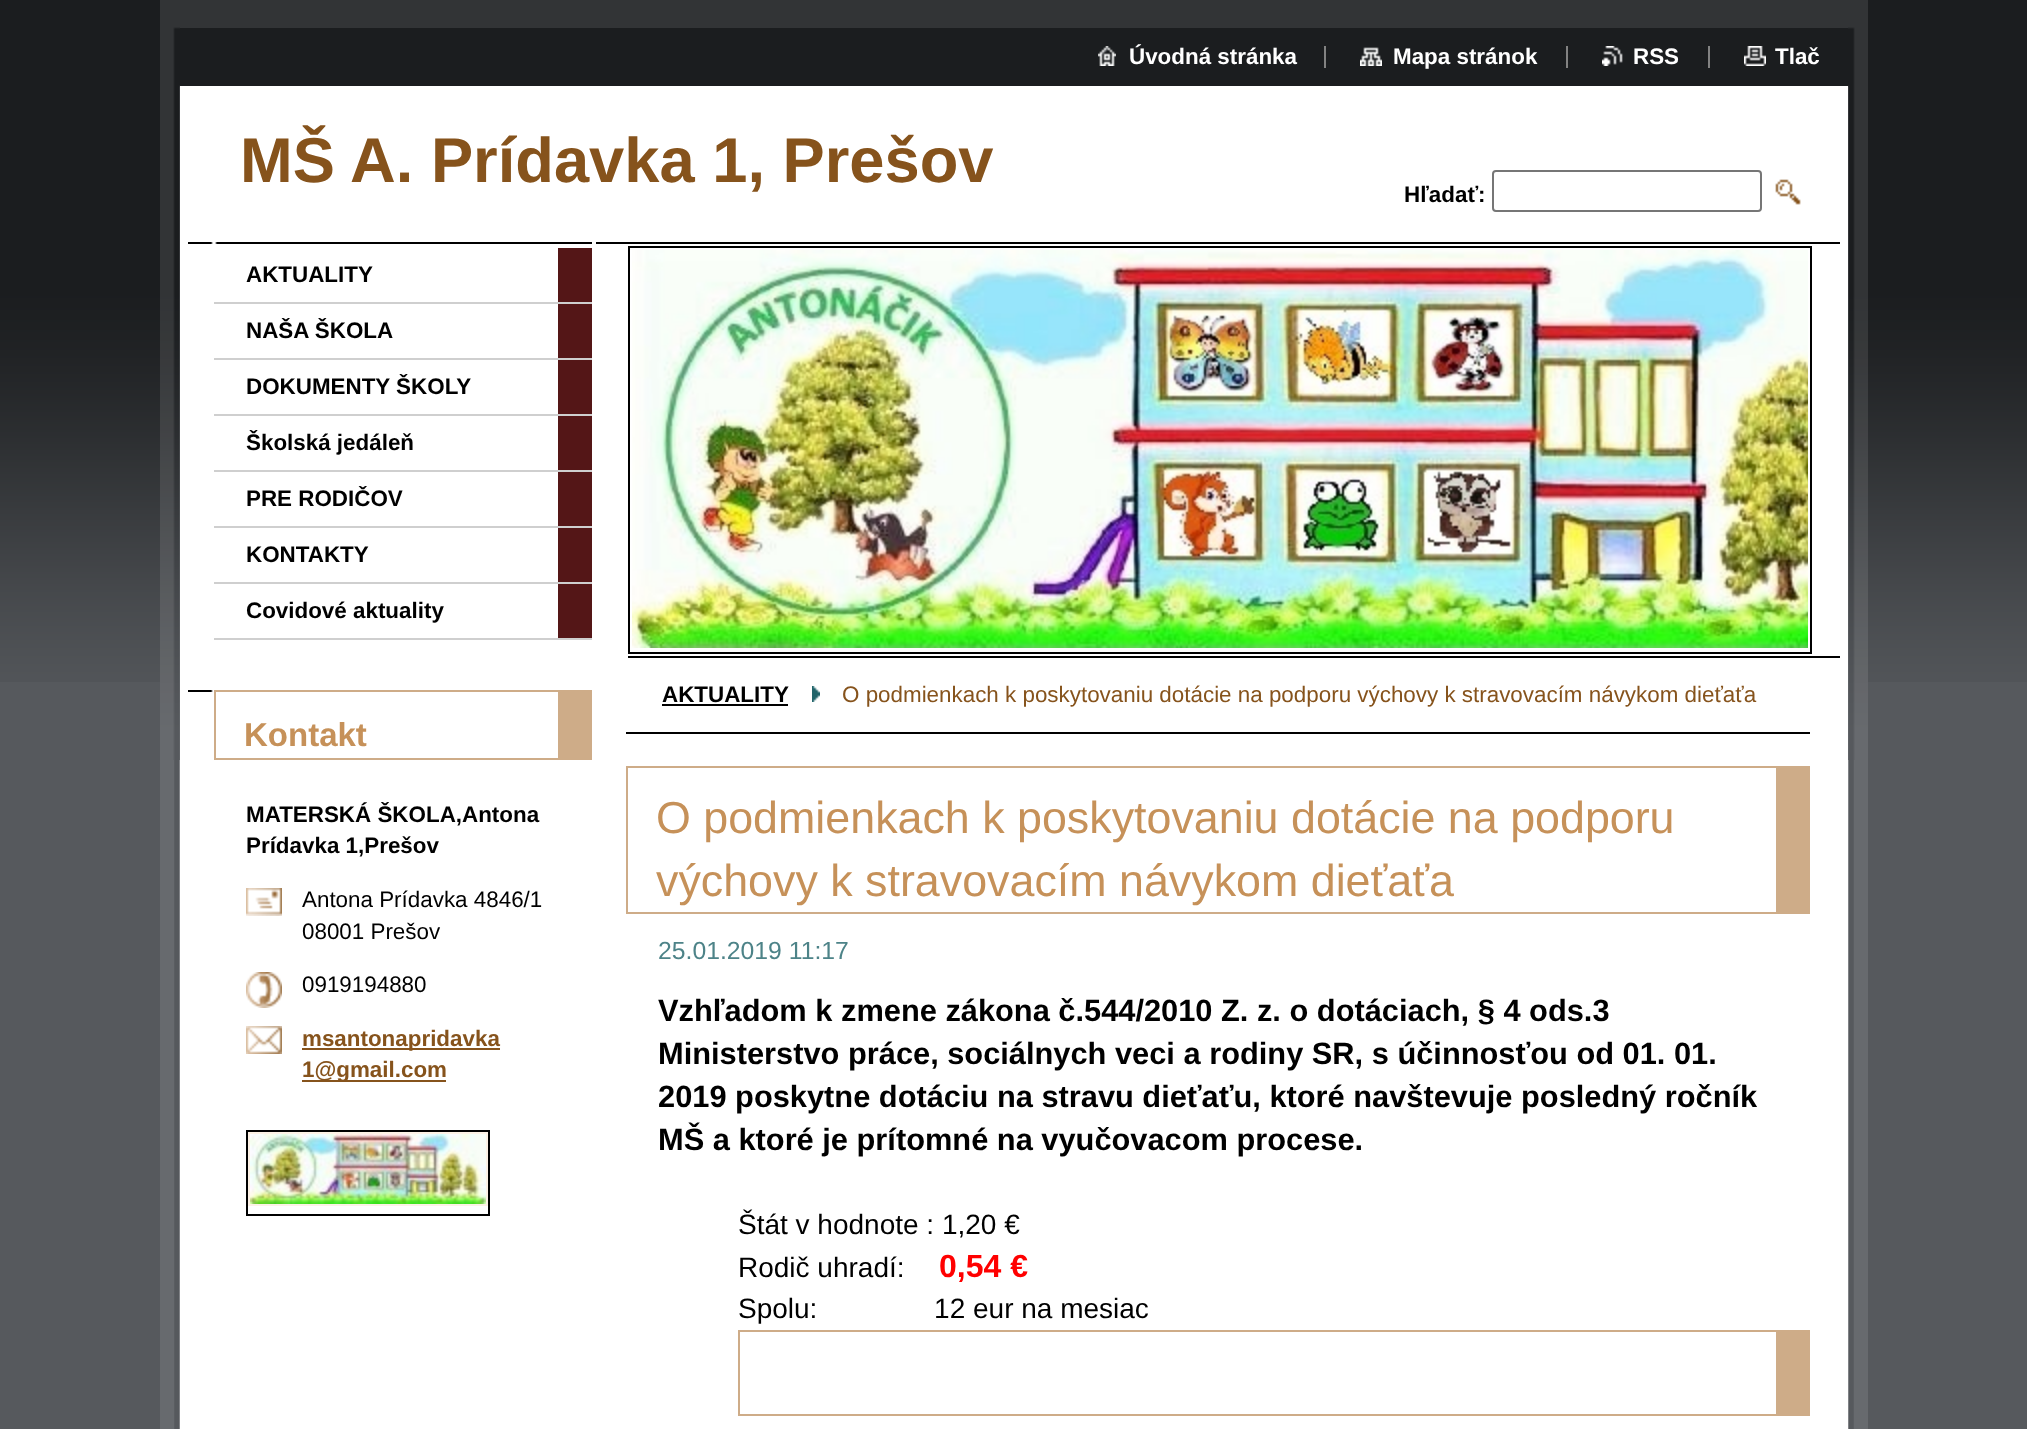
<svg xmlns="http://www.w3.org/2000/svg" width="2027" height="1429">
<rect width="100%" height="100%" fill="#56595d"/>
<image x="0" y="0" width="2027" height="682" href="media/1.png"/>
<rect x="160" y="760" width="1708" height="669" fill="#676a6e"/>
<image x="174" y="85" width="1680" height="1344" href="media/2.png"/>
<image x="160" y="0" width="1708" height="760" href="media/3.png"/>
<rect x="180" y="86" width="1668" height="1343" fill="#fff"/>
<rect x="180" y="27" width="1668" height="1" fill="#323436"/>
<rect x="180" y="28" width="1668" height="58" fill="#1b1d1f"/>
<image x="1098" y="46" width="18" height="20" href="media/4.png"/>
<text x="1129" y="64" style="font-family:Liberation Sans;font-size:22.4px;font-weight:bold;fill:#fff">Úvodná stránka</text>
<image x="1360" y="47" width="22" height="19" href="media/5.png"/>
<text x="1393" y="64" style="font-family:Liberation Sans;font-size:22.4px;font-weight:bold;fill:#fff">Mapa stránok</text>
<rect x="1324" y="46" width="2" height="22" fill="#828282"/>
<image x="1602" y="46" width="21" height="20" href="media/6.png"/>
<text x="1633" y="64" style="font-family:Liberation Sans;font-size:22.4px;font-weight:bold;fill:#fff">RSS</text>
<rect x="1566" y="46" width="2" height="22" fill="#828282"/>
<image x="1744" y="46" width="22" height="20" href="media/7.png"/>
<text x="1775" y="64" style="font-family:Liberation Sans;font-size:22.4px;font-weight:bold;fill:#fff">Tlač</text>
<rect x="1708" y="46" width="2" height="22" fill="#828282"/>
<text x="240" y="182" style="font-family:Liberation Sans;font-size:63.25px;font-weight:bold;fill:#86531c">MŠ A. Prídavka 1, Prešov</text>
<text x="1404" y="202" style="font-family:Liberation Sans;font-size:22.4px;font-weight:bold;fill:#000">Hľadať:</text>
<rect x="1493" y="171" width="268" height="40" rx="3" fill="none" stroke="#767676" stroke-width="2"/>
<image x="1775" y="179" width="26" height="26" href="media/8.png"/>
<image x="188" y="242" width="404" height="2" href="media/9.png"/>
<rect x="558" y="248" width="34" height="390" fill="#541617"/>
<rect x="214" y="302" width="378" height="2" fill="#cfcfcf"/>
<text x="246" y="282" style="font-family:Liberation Sans;font-size:22.4px;font-weight:bold;fill:#000">AKTUALITY</text>
<rect x="214" y="358" width="378" height="2" fill="#cfcfcf"/>
<text x="246" y="338" style="font-family:Liberation Sans;font-size:22.4px;font-weight:bold;fill:#000">NAŠA ŠKOLA</text>
<rect x="214" y="414" width="378" height="2" fill="#cfcfcf"/>
<text x="246" y="394" style="font-family:Liberation Sans;font-size:22.4px;font-weight:bold;fill:#000">DOKUMENTY ŠKOLY</text>
<rect x="214" y="470" width="378" height="2" fill="#cfcfcf"/>
<text x="246" y="450" style="font-family:Liberation Sans;font-size:22.4px;font-weight:bold;fill:#000">Školská jedáleň</text>
<rect x="214" y="526" width="378" height="2" fill="#cfcfcf"/>
<text x="246" y="506" style="font-family:Liberation Sans;font-size:22.4px;font-weight:bold;fill:#000">PRE RODIČOV</text>
<rect x="214" y="582" width="378" height="2" fill="#cfcfcf"/>
<text x="246" y="562" style="font-family:Liberation Sans;font-size:22.4px;font-weight:bold;fill:#000">KONTAKTY</text>
<rect x="214" y="638" width="378" height="2" fill="#cfcfcf"/>
<text x="246" y="618" style="font-family:Liberation Sans;font-size:22.4px;font-weight:bold;fill:#000">Covidové aktuality</text>
<image x="188" y="690" width="25" height="2" href="media/10.png"/>
<rect x="214" y="690" width="344" height="2" fill="#ceac88"/>
<rect x="558" y="690" width="34" height="68" fill="#ceac88"/>
<rect x="214" y="758" width="378" height="2" fill="#ceac88"/>
<rect x="214" y="690" width="2" height="70" fill="#ceac88"/>
<text x="244" y="746" style="font-family:Liberation Sans;font-size:33px;font-weight:bold;fill:#c69159">Kontakt</text>
<text x="246" y="822" style="font-family:Liberation Sans;font-size:22.4px;font-weight:bold;fill:#000">MATERSKÁ ŠKOLA,Antona</text>
<text x="246" y="853" style="font-family:Liberation Sans;font-size:22.4px;font-weight:bold;fill:#000">Prídavka 1,Prešov</text>
<image x="246" y="888" width="36" height="28" href="media/11.png"/>
<text x="302" y="907" style="font-family:Liberation Sans;font-size:22.4px;fill:#000">Antona Prídavka 4846/1</text>
<text x="302" y="939" style="font-family:Liberation Sans;font-size:22.4px;fill:#000">08001 Prešov</text>
<image x="246" y="972" width="36" height="36" href="media/12.png"/>
<text x="302" y="992" style="font-family:Liberation Sans;font-size:22.4px;fill:#000">0919194880</text>
<image x="246" y="1026" width="36" height="28" href="media/13.png"/>
<rect x="302" y="1048" width="198" height="2" fill="#86531c"/>
<text x="302" y="1046" style="font-family:Liberation Sans;font-size:22.4px;font-weight:bold;fill:#86531c">msantonapridavka</text>
<rect x="302" y="1080" width="144" height="2" fill="#86531c"/>
<text x="302" y="1077" style="font-family:Liberation Sans;font-size:22.4px;font-weight:bold;fill:#86531c">1@gmail.com</text>
<rect x="247" y="1131" width="242" height="84" fill="none" stroke="#000" stroke-width="2"/>
<rect x="249" y="1133" width="238" height="72" fill="none" stroke="#fdf2e6" stroke-width="2"/>
<image x="250" y="1134" width="236" height="70" href="media/14.png"/>
<rect x="596" y="242" width="1244" height="2" fill="#000"/>
<rect x="628" y="656" width="1212" height="2" fill="#000"/>
<rect x="629" y="247" width="1182" height="406" fill="none" stroke="#000" stroke-width="2"/>
<image x="632" y="250" width="1176" height="398" href="media/15.png"/>
<rect x="626" y="732" width="1184" height="2" fill="#000"/>
<text x="662" y="702" style="font-family:Liberation Sans;font-size:22.4px;font-weight:bold;fill:#000">AKTUALITY</text>
<rect x="662" y="704" width="126" height="2" fill="#000"/>
<image x="812" y="686" width="8" height="16" href="media/16.png"/>
<text x="842" y="702" style="font-family:Liberation Sans;font-size:22.4px;fill:#86531c">O podmienkach k poskytovaniu dotácie na podporu výchovy k stravovacím návykom dieťaťa</text>
<rect x="626" y="766" width="1150" height="2" fill="#ceac88"/>
<rect x="1776" y="766" width="34" height="146" fill="#ceac88"/>
<rect x="626" y="912" width="1184" height="2" fill="#ceac88"/>
<rect x="626" y="766" width="2" height="148" fill="#ceac88"/>
<text x="656" y="833" style="font-family:Liberation Sans;font-size:44.8px;fill:#c69159">O podmienkach k poskytovaniu dotácie na podporu</text>
<text x="656" y="896" style="font-family:Liberation Sans;font-size:44.8px;fill:#c69159">výchovy k stravovacím návykom dieťaťa</text>
<text x="658" y="959" style="font-family:Liberation Sans;font-size:24.75px;fill:#4d8388">25.01.2019 11:17</text>
<text x="658" y="1021" style="font-family:Liberation Sans;font-size:30.8px;font-weight:bold;fill:#000">Vzhľadom k zmene zákona č.544/2010 Z. z. o dotáciach, § 4 ods.3</text>
<text x="658" y="1064" style="font-family:Liberation Sans;font-size:30.8px;font-weight:bold;fill:#000">Ministerstvo práce, sociálnych veci a rodiny SR, s účinnosťou od 01. 01.</text>
<text x="658" y="1107" style="font-family:Liberation Sans;font-size:30.8px;font-weight:bold;fill:#000">2019 poskytne dotáciu na stravu dieťaťu, ktoré navštevuje posledný ročník</text>
<text x="658" y="1150" style="font-family:Liberation Sans;font-size:30.8px;font-weight:bold;fill:#000">MŠ a ktoré je prítomné na vyučovacom procese.</text>
<text x="738" y="1234" style="font-family:Liberation Sans;font-size:28px;fill:#000">Štát v hodnote : 1,20 €</text>
<text x="738" y="1277" style="font-family:Liberation Sans;font-size:28px;fill:#000">Rodič uhradí:</text>
<text x="939" y="1277" style="font-family:Liberation Sans;font-size:32px;font-weight:bold;fill:#f00">0,54 €</text>
<text x="738" y="1318" style="font-family:Liberation Sans;font-size:28px;fill:#000" xml:space="preserve">Spolu:               12 eur na mesiac</text>
<rect x="738" y="1330" width="1038" height="2" fill="#ceac88"/>
<rect x="1776" y="1330" width="34" height="84" fill="#ceac88"/>
<rect x="738" y="1414" width="1072" height="2" fill="#ceac88"/>
<rect x="738" y="1330" width="2" height="86" fill="#ceac88"/>
</svg>
